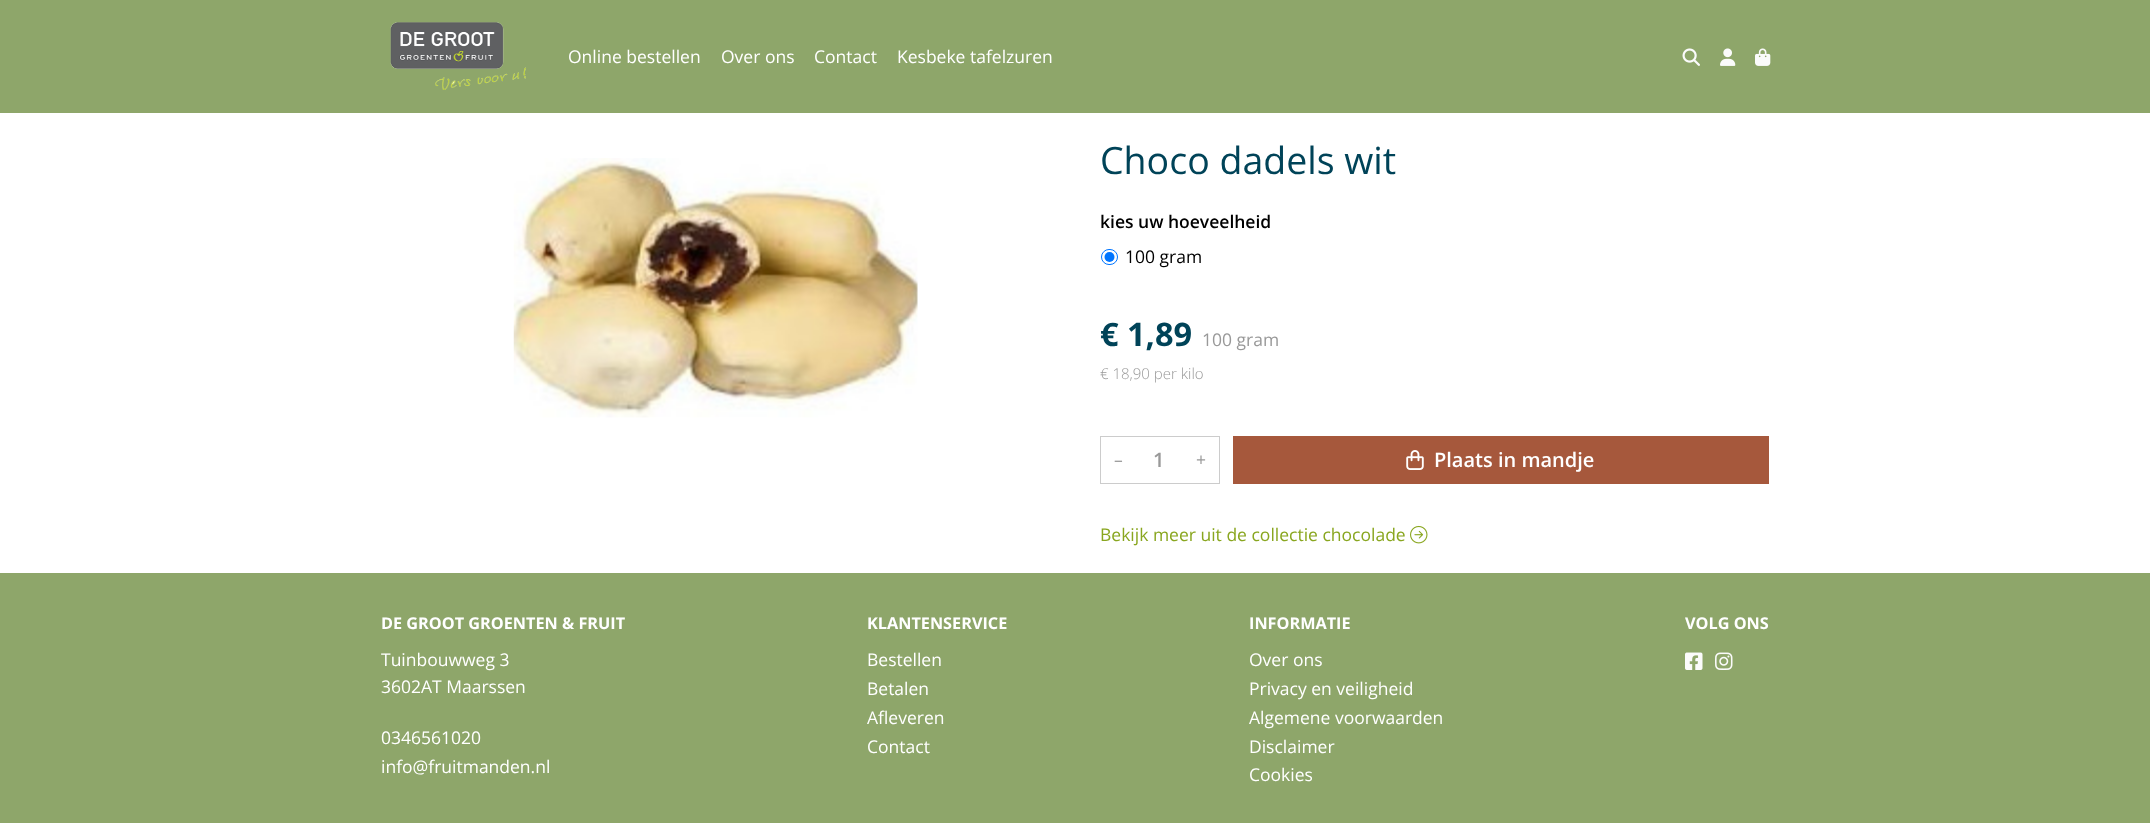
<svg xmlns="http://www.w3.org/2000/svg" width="2150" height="823">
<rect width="100%" height="100%" fill="#fff"/>
<rect width="2150" height="113" fill="#8ea66a"/>
<image x="390" y="22" width="136" height="68" href="media/1.png"/>
<text x="568" y="63" style="font-family:Open Sans;font-size:17.5px;fill:#fff">Online bestellen</text>
<text x="721" y="63" style="font-family:Open Sans;font-size:17.5px;fill:#fff">Over ons</text>
<text x="814" y="63" style="font-family:Open Sans;font-size:17.5px;fill:#fff">Contact</text>
<text x="897" y="63" style="font-family:Open Sans;font-size:17.5px;fill:#fff">Kesbeke tafelzuren</text>
<image x="1682" y="48" width="18" height="18" href="media/2.png"/>
<image x="1720" y="48" width="16" height="18" href="media/3.png"/>
<image x="1755" y="48" width="16" height="18" href="media/4.png"/>
<image x="513" y="158" width="405" height="260" href="media/5.png"/>
<text x="1100" y="174" style="font-family:Open Sans;font-size:37.5px;fill:#004358">Choco dadels wit</text>
<text x="1100" y="228" style="font-family:Open Sans;font-size:17.5px;font-weight:600;fill:#000">kies uw hoeveelheid</text>
<rect x="1101.5" y="249.5" width="16" height="15" rx="7.5" fill="none" stroke="#0075ff"/>
<circle cx="1109.5" cy="257" r="5" fill="#0075ff"/>
<text x="1125" y="263" style="font-family:Open Sans;font-size:17.5px;fill:#000">100 gram</text>
<text x="1100" y="346" style="font-family:Open Sans;font-size:32.5px;font-weight:bold;fill:#004358">€ 1,89</text>
<text x="1202" y="346" style="font-family:Open Sans;font-size:17.5px;fill:#999">100 gram</text>
<text x="1100" y="379" style="font-family:Open Sans;font-size:15px;font-weight:300;fill:#999">€ 18,90 per kilo</text>
<rect x="1100.5" y="436.5" width="119" height="47" fill="none" stroke="#ccc"/>
<text x="1114" y="466" style="font-family:Open Sans;font-size:17.5px;fill:#999">–</text>
<text x="1153" y="467" style="font-family:Open Sans;font-size:20px;font-weight:600;fill:#999">1</text>
<text x="1196" y="466" style="font-family:Open Sans;font-size:17.5px;fill:#999">+</text>
<rect x="1233" y="436" width="536" height="48" fill="#a6583c"/>
<image x="1406" y="450" width="18" height="20" href="media/6.png"/>
<text x="1434" y="467" style="font-family:Open Sans;font-size:20px;font-weight:600;fill:#fff">Plaats in mandje</text>
<text x="1100" y="541" style="font-family:Open Sans;font-size:17.5px;fill:#89a61f">Bekijk meer uit de collectie chocolade</text>
<image x="1410" y="525" width="18" height="19" href="media/7.png"/>
<rect y="573" width="2150" height="250" fill="#8ea66a"/>
<text x="381" y="629" style="font-family:Open Sans;font-size:16.25px;font-weight:bold;fill:#fff">DE GROOT GROENTEN &amp; FRUIT</text>
<text x="381" y="666" style="font-family:Open Sans;font-size:17.5px;fill:#fff">Tuinbouwweg 3</text>
<text x="381" y="693" style="font-family:Open Sans;font-size:17.5px;fill:#fff">3602AT Maarssen</text>
<text x="381" y="744" style="font-family:Open Sans;font-size:17.5px;fill:#fff">0346561020</text>
<text x="381" y="773" style="font-family:Open Sans;font-size:17.5px;fill:#fff">info@fruitmanden.nl</text>
<text x="867" y="629" style="font-family:Open Sans;font-size:16.25px;font-weight:bold;fill:#fff">KLANTENSERVICE</text>
<text x="867" y="666" style="font-family:Open Sans;font-size:17.5px;fill:#fff">Bestellen</text>
<text x="867" y="695" style="font-family:Open Sans;font-size:17.5px;fill:#fff">Betalen</text>
<text x="867" y="724" style="font-family:Open Sans;font-size:17.5px;fill:#fff">Afleveren</text>
<text x="867" y="753" style="font-family:Open Sans;font-size:17.5px;fill:#fff">Contact</text>
<text x="1249" y="629" style="font-family:Open Sans;font-size:16.25px;font-weight:bold;fill:#fff">INFORMATIE</text>
<text x="1249" y="666" style="font-family:Open Sans;font-size:17.5px;fill:#fff">Over ons</text>
<text x="1249" y="695" style="font-family:Open Sans;font-size:17.5px;fill:#fff">Privacy en veiligheid</text>
<text x="1249" y="724" style="font-family:Open Sans;font-size:17.5px;fill:#fff">Algemene voorwaarden</text>
<text x="1249" y="753" style="font-family:Open Sans;font-size:17.5px;fill:#fff">Disclaimer</text>
<text x="1249" y="781" style="font-family:Open Sans;font-size:17.5px;fill:#fff">Cookies</text>
<text x="1685" y="629" style="font-family:Open Sans;font-size:16.25px;font-weight:bold;fill:#fff">VOLG ONS</text>
<image x="1685" y="652" width="18" height="18" href="media/8.png"/>
<image x="1715" y="652" width="18" height="18" href="media/9.png"/>
</svg>
